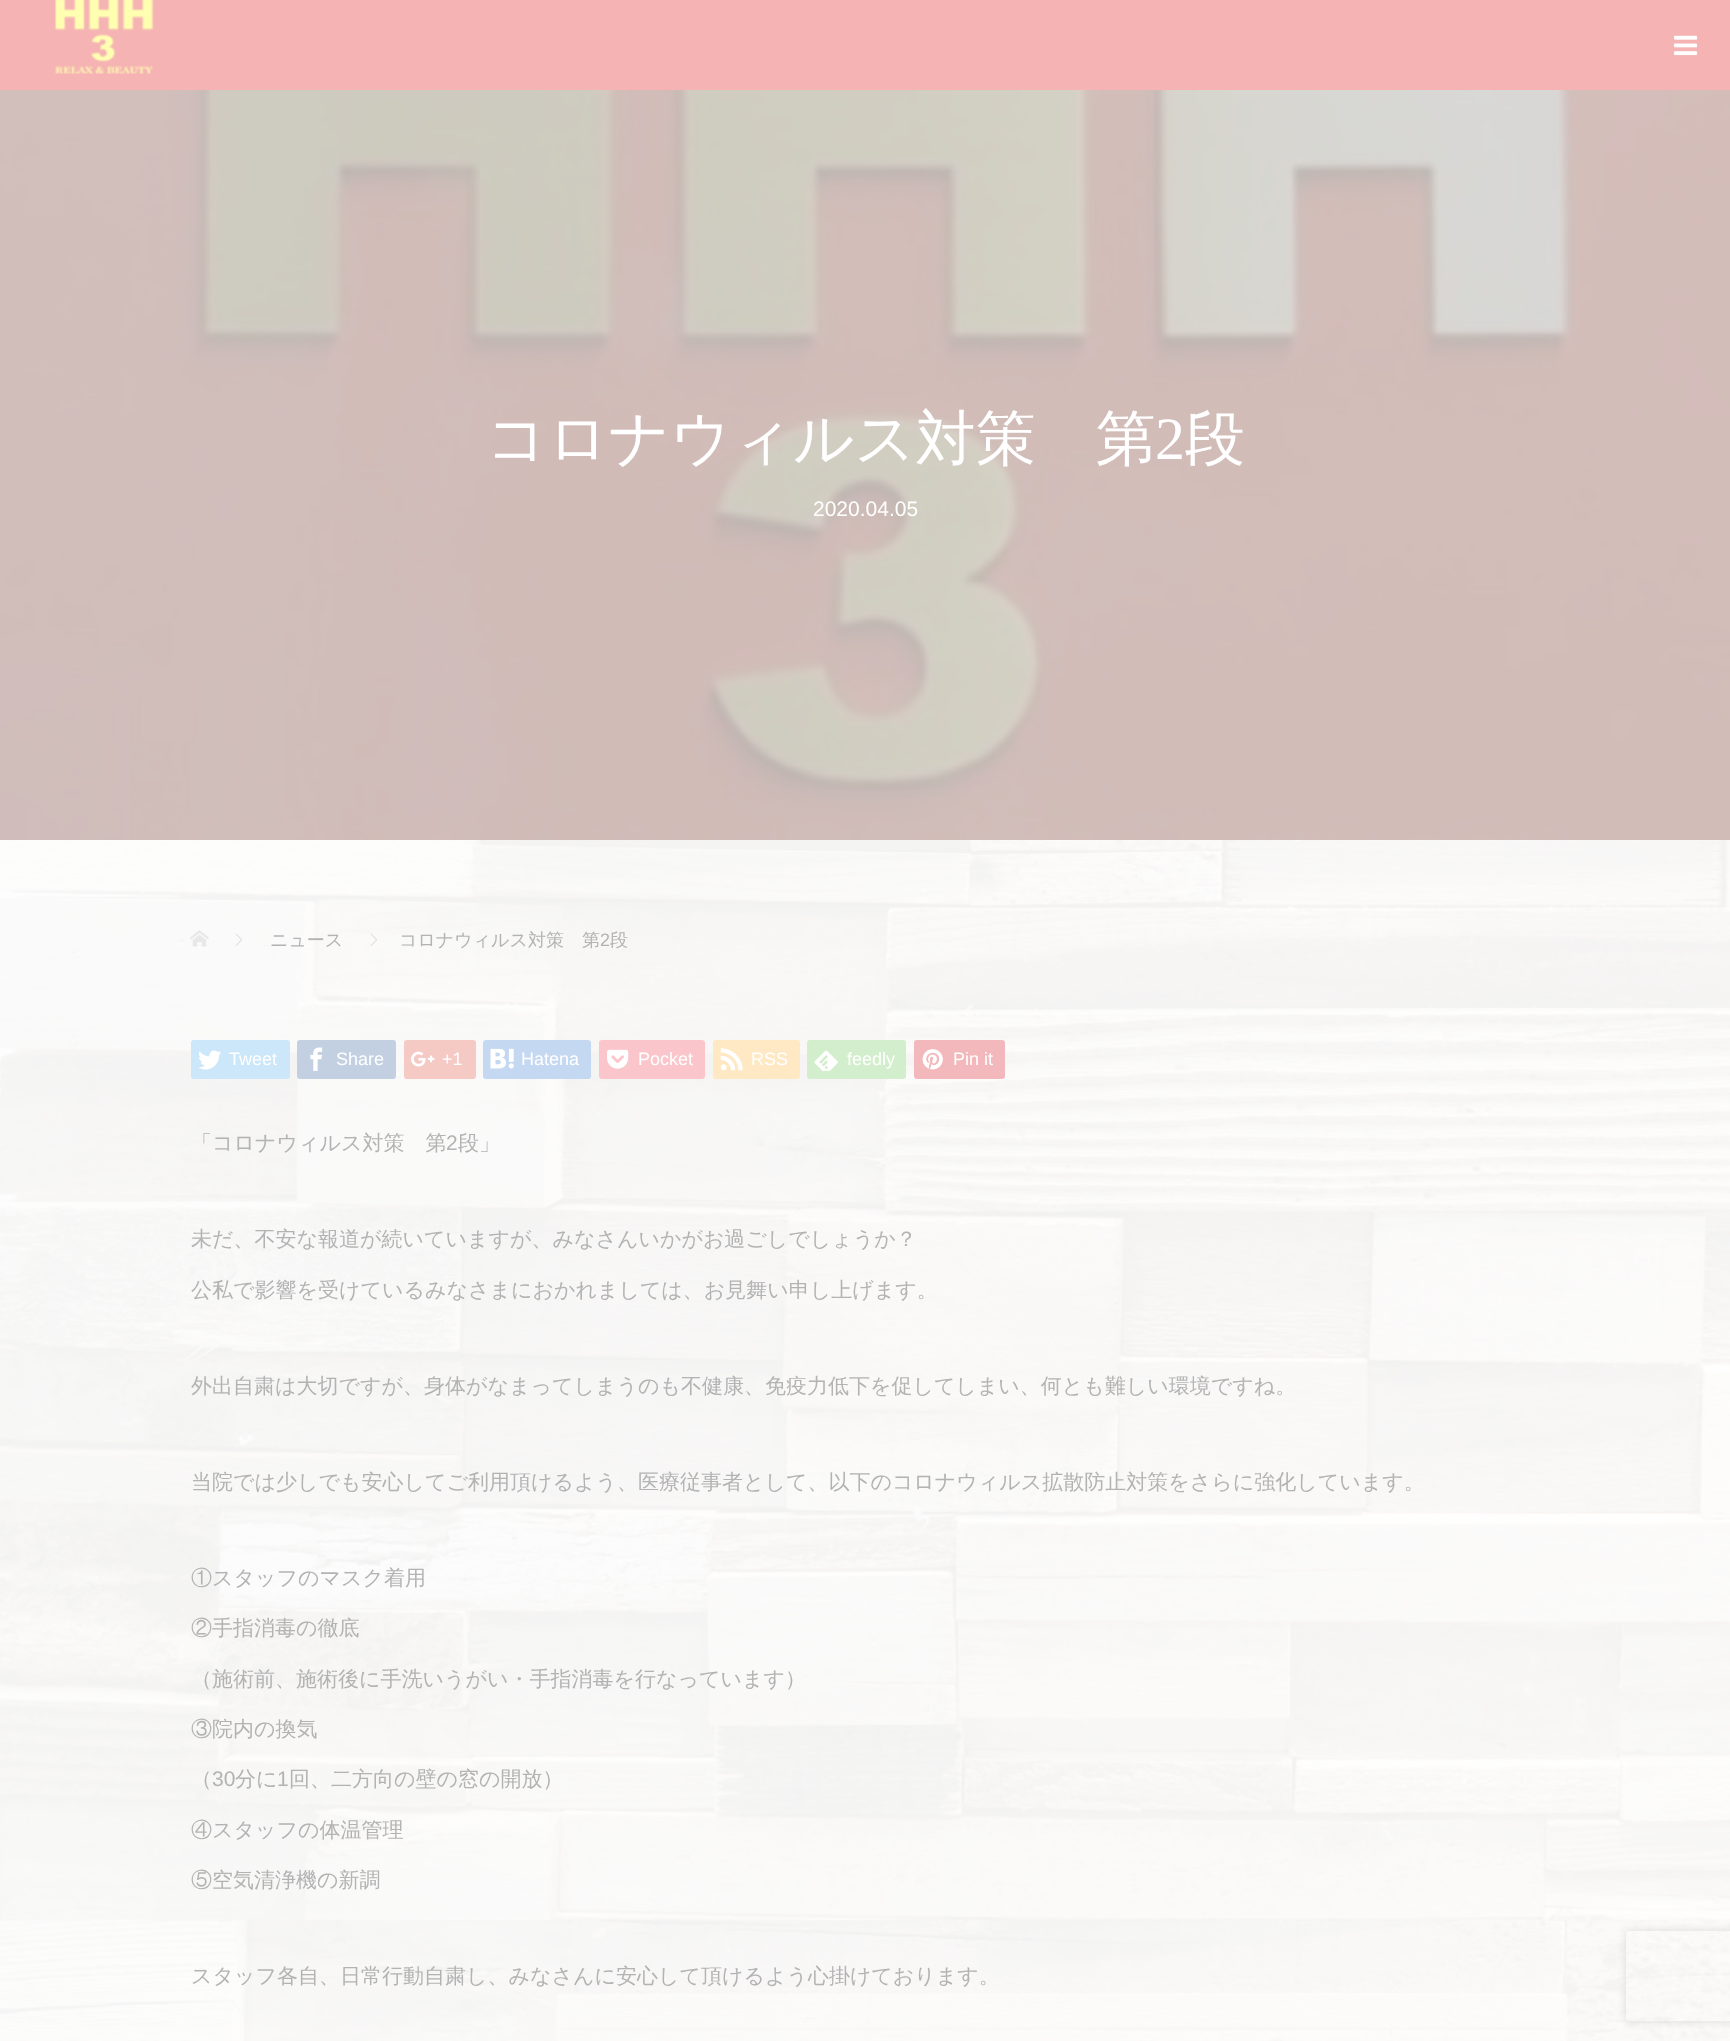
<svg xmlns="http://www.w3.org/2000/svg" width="1730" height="2041">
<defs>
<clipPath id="clip1"><path d="M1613 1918h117v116h-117zm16 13h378c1.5 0 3 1.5 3 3v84c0 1.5-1.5 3-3 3h-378c-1.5 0-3-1.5-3-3v-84c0-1.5 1.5-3 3-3z" clip-rule="evenodd"/></clipPath>
</defs>
<rect width="100%" height="100%" fill="#fff"/>
<image x="0" y="840" width="1730" height="1201" href="media/1.png"/>
<image x="0" y="90" width="1730" height="750" href="media/2.png"/>
<rect width="1730" height="90" fill="#f5b3b3"/>
<image x="55" y="0" width="99" height="74" href="media/3.png"/>
<image x="1674" y="35" width="24" height="21" href="media/4.png"/>
<text x="486" y="459" style="font-family:WenQuanYi Zen Hei;font-size:60px;font-weight:500;fill:#fff">コロナウィルス対策　第</text>
<text x="1155" y="459" style="font-family:Liberation Serif;font-size:60px;fill:#fff">2</text>
<text x="1185" y="459" style="font-family:WenQuanYi Zen Hei;font-size:60px;font-weight:500;fill:#fff">段</text>
<text x="813" y="516" style="font-family:Liberation Sans;font-size:21px;fill:#fff">2020.04.05</text>
<image x="190" y="930" width="19" height="17" href="media/5.png"/>
<image x="235" y="933" width="8" height="14" href="media/6.png"/>
<text x="270" y="946" style="font-family:WenQuanYi Zen Hei;font-size:18px;font-weight:500;fill:#b3b3b3">ニュース</text>
<image x="370" y="933" width="8" height="14" href="media/7.png"/>
<text x="399" y="946" style="font-family:WenQuanYi Zen Hei;font-size:18px;font-weight:500;fill:#b3b3b3">コロナウィルス対策　第</text>
<text x="600" y="946" style="font-family:Liberation Sans;font-size:18px;fill:#b3b3b3">2</text>
<text x="610" y="946" style="font-family:WenQuanYi Zen Hei;font-size:18px;font-weight:500;fill:#b3b3b3">段</text>
<rect x="191" y="1040" width="99" height="39" rx="3" fill="#cce6fa"/>
<image x="198" y="1050" width="24" height="20" href="media/8.png"/>
<text x="229" y="1065" style="font-family:Liberation Sans;font-size:18px;fill:#fff">Tweet</text>
<rect x="297" y="1040" width="99" height="39" rx="3" fill="#c2d0e1"/>
<image x="310" y="1047" width="13" height="24" href="media/9.png"/>
<text x="336" y="1065" style="font-family:Liberation Sans;font-size:18px;fill:#fff">Share</text>
<rect x="404" y="1040" width="72" height="39" rx="3" fill="#f5c9c4"/>
<image x="411" y="1051" width="24" height="16" href="media/10.png"/>
<text x="442" y="1065" style="font-family:Liberation Sans;font-size:18px;fill:#fff">+1</text>
<rect x="483" y="1040" width="108" height="39" rx="3" fill="#c5d8f1"/>
<image x="490" y="1048" width="24" height="21" href="media/11.png"/>
<text x="521" y="1065" style="font-family:Liberation Sans;font-size:18px;fill:#fff">Hatena</text>
<rect x="599" y="1040" width="106" height="39" rx="3" fill="#fac6cc"/>
<image x="607" y="1049" width="22" height="20" href="media/12.png"/>
<text x="638" y="1065" style="font-family:Liberation Sans;font-size:18px;fill:#fff">Pocket</text>
<rect x="713" y="1040" width="87" height="39" rx="3" fill="#ffe9c5"/>
<image x="720" y="1048" width="23" height="23" href="media/13.png"/>
<text x="751" y="1065" style="font-family:Liberation Sans;font-size:18px;fill:#fff">RSS</text>
<rect x="807" y="1040" width="99" height="39" rx="3" fill="#d3eecc"/>
<image x="814" y="1050" width="24" height="21" href="media/14.png"/>
<text x="847" y="1065" style="font-family:Liberation Sans;font-size:18px;fill:#fff">feedly</text>
<rect x="914" y="1040" width="91" height="39" rx="3" fill="#f2b8bb"/>
<image x="922" y="1049" width="21" height="21" href="media/15.png"/>
<text x="953" y="1065" style="font-family:Liberation Sans;font-size:18px;fill:#fff">Pin it</text>
<text x="191" y="1150" style="font-family:WenQuanYi Zen Hei;font-size:21px;font-weight:500;fill:#b3b3b3">「コロナウィルス対策　第</text>
<text x="446" y="1150" style="font-family:Liberation Sans;font-size:21px;fill:#b3b3b3">2</text>
<text x="458" y="1150" style="font-family:WenQuanYi Zen Hei;font-size:21px;font-weight:500;fill:#b3b3b3">段」</text>
<text x="191" y="1246" style="font-family:WenQuanYi Zen Hei;font-size:21px;font-weight:500;fill:#b3b3b3">未だ、不安な報道が続いていますが、みなさんいかがお過ごしでしょうか？</text>
<text x="191" y="1297" style="font-family:WenQuanYi Zen Hei;font-size:21px;font-weight:500;fill:#b3b3b3">公私で影響を受けているみなさまにおかれましては、お見舞い申し上げます。</text>
<text x="191" y="1393" style="font-family:WenQuanYi Zen Hei;font-size:21px;font-weight:500;fill:#b3b3b3">外出自粛は大切ですが、身体がなまってしまうのも不健康、免疫力低下を促してしまい、何とも難しい環境ですね。</text>
<text x="191" y="1489" style="font-family:WenQuanYi Zen Hei;font-size:21px;font-weight:500;fill:#b3b3b3">当院では少しでも安心してご利用頂けるよう、医療従事者として、以下のコロナウィルス拡散防止対策をさらに強化しています。</text>
<text x="191" y="1585" style="font-family:WenQuanYi Zen Hei;font-size:21px;font-weight:500;fill:#b3b3b3">①スタッフのマスク着用</text>
<text x="191" y="1635" style="font-family:WenQuanYi Zen Hei;font-size:21px;font-weight:500;fill:#b3b3b3">②手指消毒の徹底</text>
<text x="191" y="1686" style="font-family:WenQuanYi Zen Hei;font-size:21px;font-weight:500;fill:#b3b3b3">（施術前、施術後に手洗いうがい・手指消毒を行なっています）</text>
<text x="191" y="1736" style="font-family:WenQuanYi Zen Hei;font-size:21px;font-weight:500;fill:#b3b3b3">③院内の換気</text>
<text x="191" y="1786" style="font-family:WenQuanYi Zen Hei;font-size:21px;font-weight:500;fill:#b3b3b3">（</text>
<text x="212" y="1786" style="font-family:Liberation Sans;font-size:21px;fill:#b3b3b3">30</text>
<text x="235" y="1786" style="font-family:WenQuanYi Zen Hei;font-size:21px;font-weight:500;fill:#b3b3b3">分に</text>
<text x="277" y="1786" style="font-family:Liberation Sans;font-size:21px;fill:#b3b3b3">1</text>
<text x="289" y="1786" style="font-family:WenQuanYi Zen Hei;font-size:21px;font-weight:500;fill:#b3b3b3">回、二方向の壁の窓の開放）</text>
<text x="191" y="1837" style="font-family:WenQuanYi Zen Hei;font-size:21px;font-weight:500;fill:#b3b3b3">④スタッフの体温管理</text>
<text x="191" y="1887" style="font-family:WenQuanYi Zen Hei;font-size:21px;font-weight:500;fill:#b3b3b3">⑤空気清浄機の新調</text>
<text x="191" y="1983" style="font-family:WenQuanYi Zen Hei;font-size:21px;font-weight:500;fill:#b3b3b3">スタッフ各自、日常行動自粛し、みなさんに安心して頂けるよう心掛けております。</text>
<g clip-path="url(#clip1)">
<rect x="1626" y="1931" width="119" height="90" rx="3" fill="#d9d9d9" filter="blur(4px)"/>
</g>
</svg>
